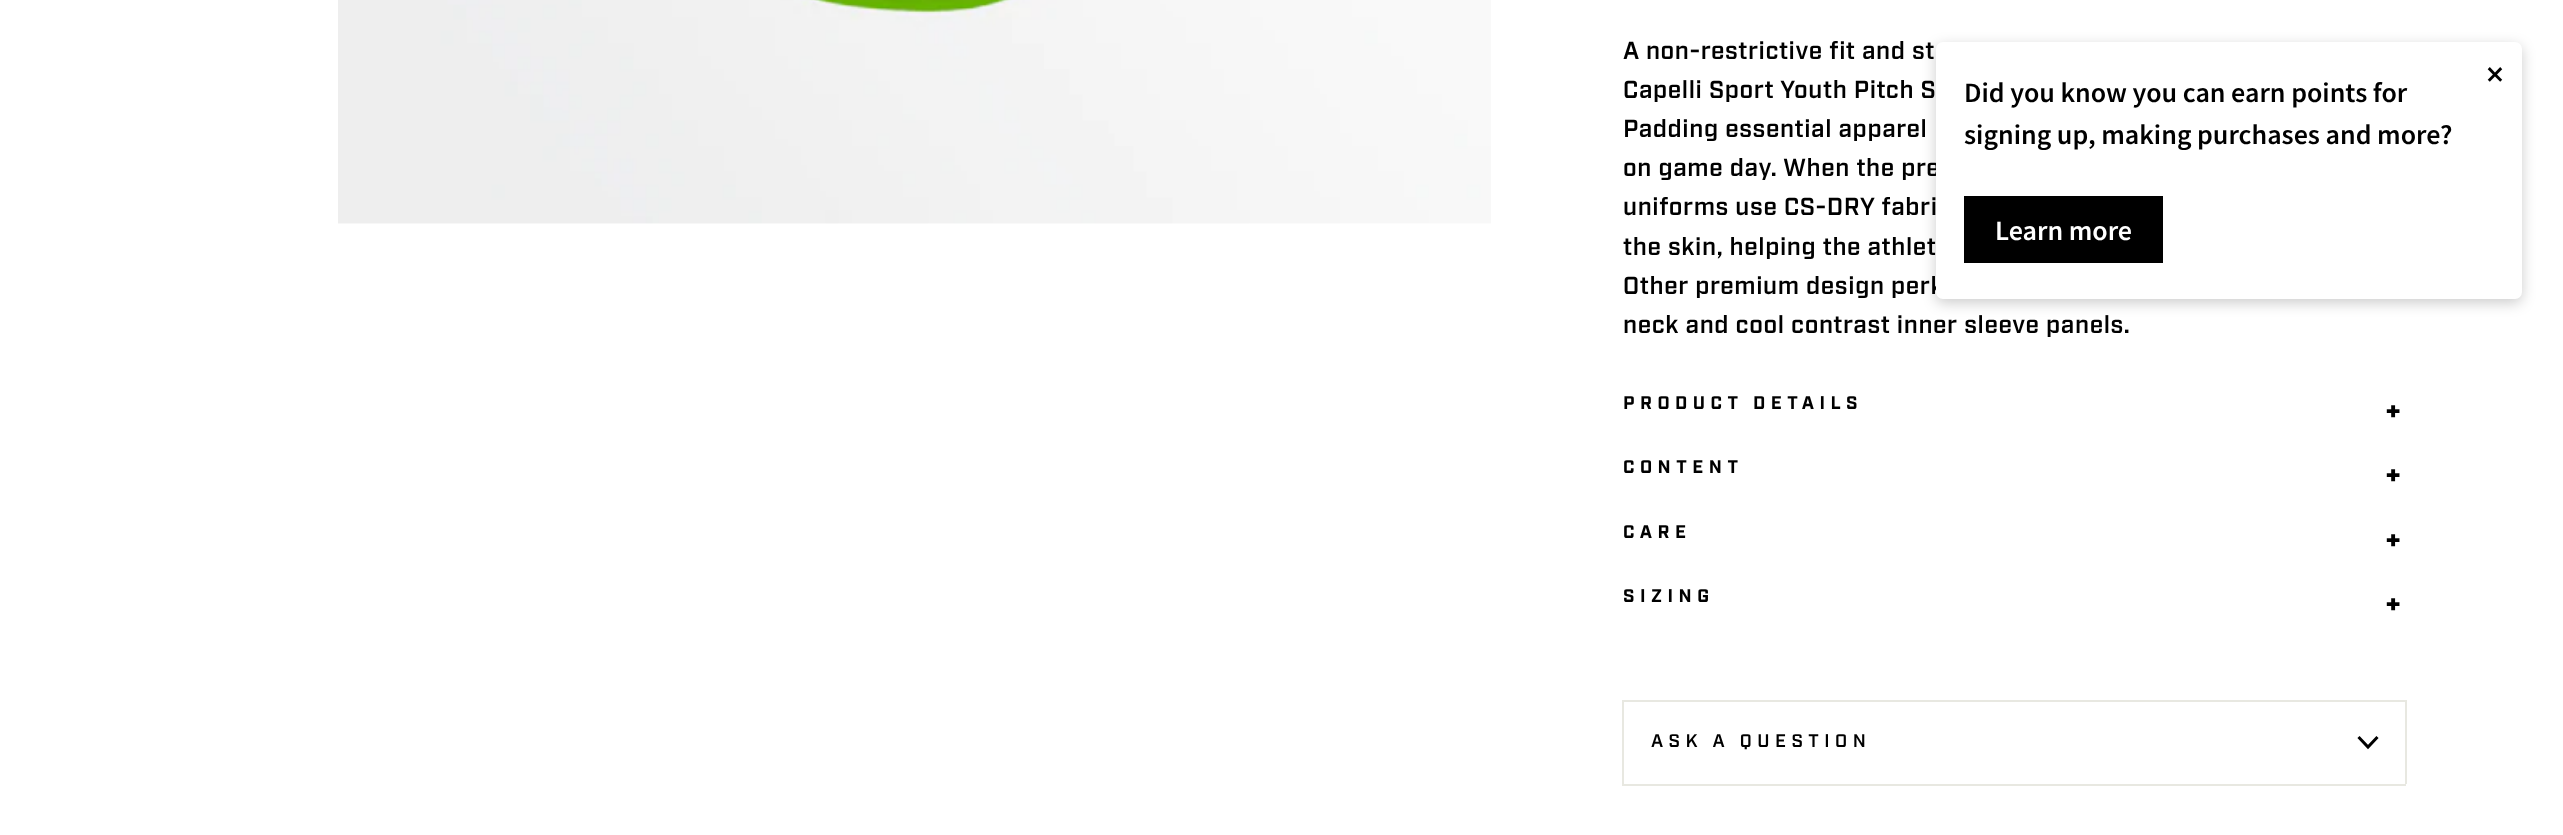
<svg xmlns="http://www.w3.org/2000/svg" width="2563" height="835">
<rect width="100%" height="100%" fill="#fff"/>
<image x="338" y="0" width="1153" height="224" href="media/1.png"/>
<text x="1623" y="59" style="font-family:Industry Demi;font-size:24.5px;font-weight:600;letter-spacing:0.6px;fill:#000">A non-restrictive fit and st</text>
<text x="1623" y="98" style="font-family:Industry Demi;font-size:24.5px;font-weight:600;letter-spacing:0.6px;fill:#000">Capelli Sport Youth Pitch S</text>
<text x="1623" y="137" style="font-family:Industry Demi;font-size:24.5px;font-weight:600;letter-spacing:0.6px;fill:#000">Padding essential apparel</text>
<text x="1623" y="176" style="font-family:Industry Demi;font-size:24.5px;font-weight:600;letter-spacing:0.6px;fill:#000">on game day. When the pre</text>
<text x="1623" y="215" style="font-family:Industry Demi;font-size:24.5px;font-weight:600;letter-spacing:0.6px;fill:#000">uniforms use CS-DRY fabri</text>
<text x="1623" y="255" style="font-family:Industry Demi;font-size:24.5px;font-weight:600;letter-spacing:0.6px;fill:#000">the skin, helping the athlet</text>
<text x="1623" y="294" style="font-family:Industry Demi;font-size:24.5px;font-weight:600;letter-spacing:0.6px;fill:#000">Other premium design perk</text>
<text x="1623" y="333" style="font-family:Industry Demi;font-size:24.5px;font-weight:600;letter-spacing:0.6px;fill:#000">neck and cool contrast inner sleeve panels.</text>
<text x="1623" y="409" style="font-family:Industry;font-size:18.4px;font-weight:bold;letter-spacing:5.5px;fill:#000">PRODUCT DETAILS</text>
<text x="2385" y="423" style="font-family:Industry;font-size:32px;font-weight:bold;letter-spacing:5.5px;fill:#000">+</text>
<text x="1623" y="473" style="font-family:Industry;font-size:18.4px;font-weight:bold;letter-spacing:5.5px;fill:#000">CONTENT</text>
<text x="2385" y="487" style="font-family:Industry;font-size:32px;font-weight:bold;letter-spacing:5.5px;fill:#000">+</text>
<text x="1623" y="538" style="font-family:Industry;font-size:18.4px;font-weight:bold;letter-spacing:5.5px;fill:#000">CARE</text>
<text x="2385" y="552" style="font-family:Industry;font-size:32px;font-weight:bold;letter-spacing:5.5px;fill:#000">+</text>
<text x="1623" y="602" style="font-family:Industry;font-size:18.4px;font-weight:bold;letter-spacing:5.5px;fill:#000">SIZING</text>
<text x="2385" y="616" style="font-family:Industry;font-size:32px;font-weight:bold;letter-spacing:5.5px;fill:#000">+</text>
<rect x="1622" y="784" width="784" height="2" fill="#e8e8e1"/>
<rect x="1622" y="700" width="784" height="2" fill="#e8e8e1"/>
<rect x="2405" y="700" width="2" height="84" fill="#e8e8e1"/>
<rect x="1622" y="700" width="2" height="84" fill="#e8e8e1"/>
<text x="1651" y="747" style="font-family:Industry Demi;font-size:18.4px;font-weight:600;letter-spacing:5.5px;fill:#000">ASK A QUESTION</text>
<path d="M2358.5 737l9.5 10l9.5-10" fill="none" stroke="#000" stroke-width="3"/>
<rect x="1936" y="46" width="586" height="257" rx="7" fill="#00000033" filter="blur(7px)"/>
<rect x="1936" y="42" width="586" height="257" rx="7" fill="#fff"/>
<text x="2486" y="86" style="font-family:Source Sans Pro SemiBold;font-size:35px;font-weight:600;fill:#000">×</text>
<text x="1964" y="102" style="font-family:Source Sans Pro SemiBold;font-size:28px;font-weight:600;fill:#000">Did you know you can earn points for</text>
<text x="1964" y="144" style="font-family:Source Sans Pro SemiBold;font-size:28px;font-weight:600;fill:#000">signing up, making purchases and more?</text>
<rect x="1964" y="196" width="199" height="67" fill="#000"/>
<text x="1995" y="240" style="font-family:Source Sans Pro SemiBold;font-size:28px;font-weight:600;fill:#fff">Learn more</text>
</svg>
